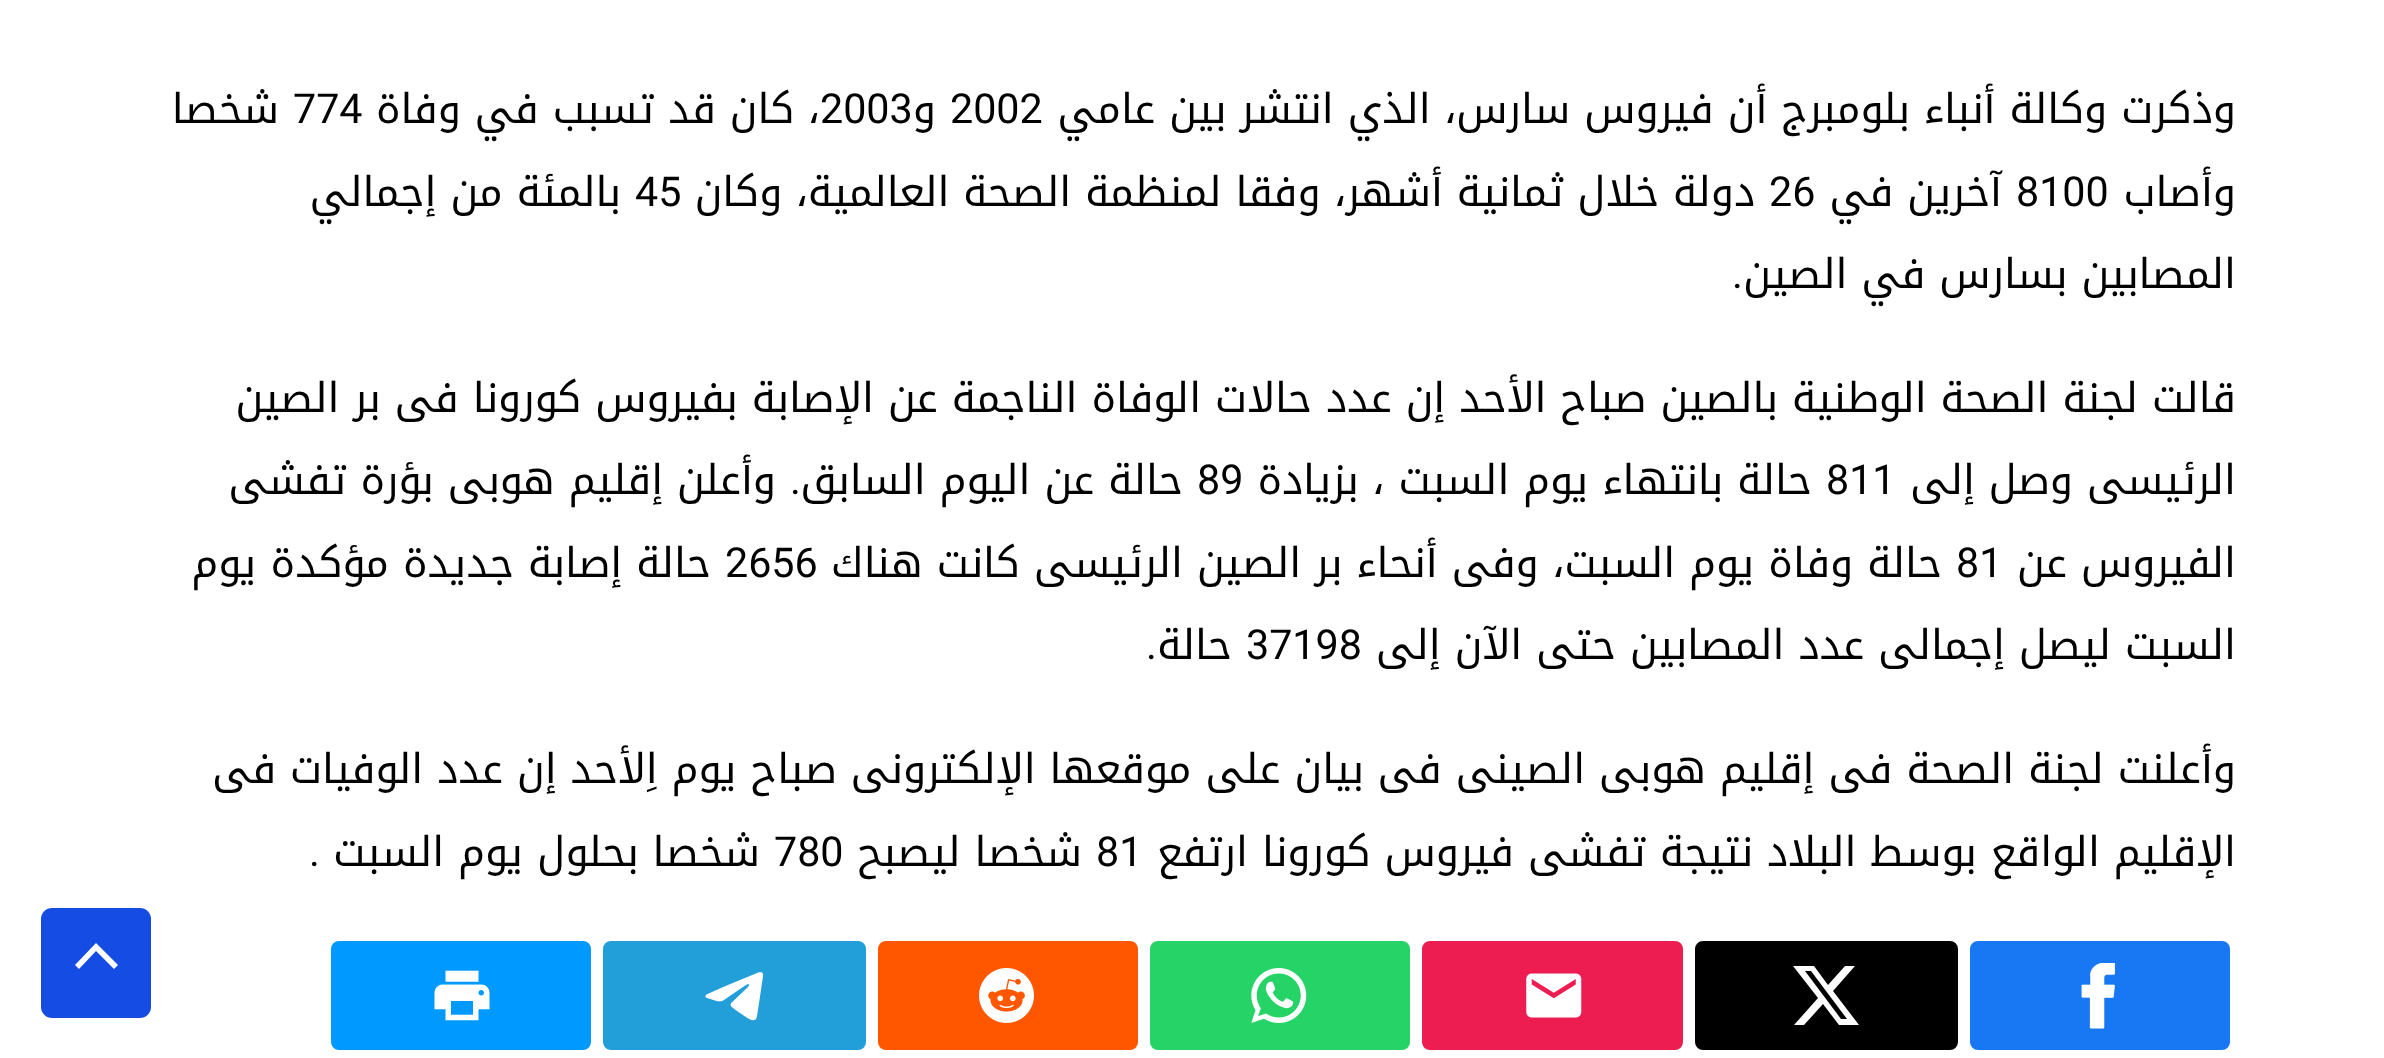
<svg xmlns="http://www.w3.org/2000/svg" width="2384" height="1058">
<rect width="100%" height="100%" fill="#fff"/>
<text x="2236" y="123" style="font-family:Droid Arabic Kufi;font-size:41.25px;direction:rtl;fill:#000">وذكرت وكالة أنباء بلومبرج أن فيروس سارس، الذي انتشر بين عامي</text>
<text x="950" y="123" style="font-family:Roboto;font-size:41.25px;fill:#000">2002</text>
<text x="936" y="123" style="font-family:Droid Arabic Kufi;font-size:41.25px;direction:rtl;fill:#000">و</text>
<text x="820" y="123" style="font-family:Roboto;font-size:41.25px;fill:#000">2003</text>
<text x="820" y="123" style="font-family:Droid Arabic Kufi;font-size:41.25px;direction:rtl;fill:#000">، كان قد تسبب في وفاة</text>
<text x="293" y="123" style="font-family:Roboto;font-size:41.25px;fill:#000">774</text>
<text x="279" y="123" style="font-family:Droid Arabic Kufi;font-size:41.25px;direction:rtl;fill:#000">شخصا</text>
<text x="2236" y="206" style="font-family:Droid Arabic Kufi;font-size:41.25px;direction:rtl;fill:#000">وأصاب</text>
<text x="2016" y="206" style="font-family:Roboto;font-size:41.25px;fill:#000">8100</text>
<text x="2002" y="206" style="font-family:Droid Arabic Kufi;font-size:41.25px;direction:rtl;fill:#000">آخرين في</text>
<text x="1769" y="206" style="font-family:Roboto;font-size:41.25px;fill:#000">26</text>
<text x="1755" y="206" style="font-family:Droid Arabic Kufi;font-size:41.25px;direction:rtl;fill:#000">دولة خلال ثمانية أشهر، وفقا لمنظمة الصحة العالمية، وكان</text>
<text x="635" y="206" style="font-family:Roboto;font-size:41.25px;fill:#000">45</text>
<text x="621" y="206" style="font-family:Droid Arabic Kufi;font-size:41.25px;direction:rtl;fill:#000">بالمئة من إجمالي</text>
<text x="2236" y="288" style="font-family:Droid Arabic Kufi;font-size:41.25px;direction:rtl;fill:#000">المصابين بسارس في الصين</text>
<text x="1743" y="288" style="font-family:Roboto;font-size:41.25px;direction:rtl;fill:#000">.</text>
<text x="2236" y="412" style="font-family:Droid Arabic Kufi;font-size:41.25px;direction:rtl;fill:#000">قالت لجنة الصحة الوطنية بالصين صباح الأحد إن عدد حالات الوفاة الناجمة عن الإصابة بفيروس كورونا فى بر الصين</text>
<text x="2236" y="494" style="font-family:Droid Arabic Kufi;font-size:41.25px;direction:rtl;fill:#000">الرئيسى وصل إلى</text>
<text x="1826" y="494" style="font-family:Roboto;font-size:41.25px;fill:#000">811</text>
<text x="1812" y="494" style="font-family:Droid Arabic Kufi;font-size:41.25px;direction:rtl;fill:#000">حالة بانتهاء يوم السبت ، بزيادة</text>
<text x="1197" y="494" style="font-family:Roboto;font-size:41.25px;fill:#000">89</text>
<text x="1183" y="494" style="font-family:Droid Arabic Kufi;font-size:41.25px;direction:rtl;fill:#000">حالة عن اليوم السابق</text>
<text x="801" y="494" style="font-family:Roboto;font-size:41.25px;direction:rtl;fill:#000">.</text>
<text x="776" y="494" style="font-family:Droid Arabic Kufi;font-size:41.25px;direction:rtl;fill:#000">وأعلن إقليم هوبى بؤرة تفشى</text>
<text x="2236" y="577" style="font-family:Droid Arabic Kufi;font-size:41.25px;direction:rtl;fill:#000">الفيروس عن</text>
<text x="1956" y="577" style="font-family:Roboto;font-size:41.25px;fill:#000">81</text>
<text x="1942" y="577" style="font-family:Droid Arabic Kufi;font-size:41.25px;direction:rtl;fill:#000">حالة وفاة يوم السبت، وفى أنحاء بر الصين الرئيسى كانت هناك</text>
<text x="725" y="577" style="font-family:Roboto;font-size:41.25px;fill:#000">2656</text>
<text x="711" y="577" style="font-family:Droid Arabic Kufi;font-size:41.25px;direction:rtl;fill:#000">حالة إصابة جديدة مؤكدة يوم</text>
<text x="2236" y="659" style="font-family:Droid Arabic Kufi;font-size:41.25px;direction:rtl;fill:#000">السبت ليصل إجمالى عدد المصابين حتى الآن إلى</text>
<text x="1246" y="659" style="font-family:Roboto;font-size:41.25px;fill:#000">37198</text>
<text x="1232" y="659" style="font-family:Droid Arabic Kufi;font-size:41.25px;direction:rtl;fill:#000">حالة</text>
<text x="1157" y="659" style="font-family:Roboto;font-size:41.25px;direction:rtl;fill:#000">.</text>
<text x="2236" y="783" style="font-family:Droid Arabic Kufi;font-size:41.25px;direction:rtl;fill:#000">وأعلنت لجنة الصحة فى إقليم هوبى الصينى فى بيان على موقعها الإلكترونى صباح يوم اِلأحد إن عدد الوفيات فى</text>
<text x="2236" y="866" style="font-family:Droid Arabic Kufi;font-size:41.25px;direction:rtl;fill:#000">الإقليم الواقع بوسط البلاد نتيجة تفشى فيروس كورونا ارتفع</text>
<text x="1096" y="866" style="font-family:Roboto;font-size:41.25px;fill:#000">81</text>
<text x="1082" y="866" style="font-family:Droid Arabic Kufi;font-size:41.25px;direction:rtl;fill:#000">شخصا ليصبح</text>
<text x="774" y="866" style="font-family:Roboto;font-size:41.25px;fill:#000">780</text>
<text x="760" y="866" style="font-family:Droid Arabic Kufi;font-size:41.25px;direction:rtl;fill:#000">شخصا بحلول يوم السبت</text>
<text x="320" y="866" style="font-family:Roboto;font-size:41.25px;direction:rtl;fill:#000">.</text>
<rect x="1967" y="938" width="266" height="115" rx="11" fill="#1877f2" stroke="#fff" stroke-width="6"/>
<image x="2081" y="963" width="34" height="66" href="media/1.png"/>
<rect x="1692" y="938" width="269" height="115" rx="11" fill="#000" stroke="#fff" stroke-width="6"/>
<path d="M1845 966h10l-22 25l26 34h-20l-16-21l-19 21h-10l24-27l-25-32h21l14 19zm-4 53h6l-36-48h-6z" fill="#fff"/>
<rect x="1419" y="938" width="267" height="115" rx="11" fill="#ee1d51" stroke="#fff" stroke-width="6"/>
<image x="1526" y="973" width="56" height="45" href="media/2.png"/>
<rect x="1147" y="938" width="266" height="115" rx="11" fill="#25d366" stroke="#fff" stroke-width="6"/>
<image x="1251" y="968" width="56" height="55" href="media/3.png"/>
<rect x="875" y="938" width="266" height="115" rx="11" fill="#ff5700" stroke="#fff" stroke-width="6"/>
<image x="979" y="968" width="55" height="55" href="media/4.png"/>
<rect x="600" y="938" width="269" height="115" rx="11" fill="#229ed9" stroke="#fff" stroke-width="6"/>
<image x="705" y="972" width="59" height="49" href="media/5.png"/>
<rect x="328" y="938" width="266" height="115" rx="11" fill="#09f" stroke="#fff" stroke-width="6"/>
<image x="434" y="970" width="56" height="51" href="media/6.png"/>
<rect x="41" y="908" width="110" height="110" rx="11" fill="#144ce4"/>
<path d="M118 965l-4 4l-18-18l-17 18l-4-4l21-22z" fill="#fff"/>
</svg>
